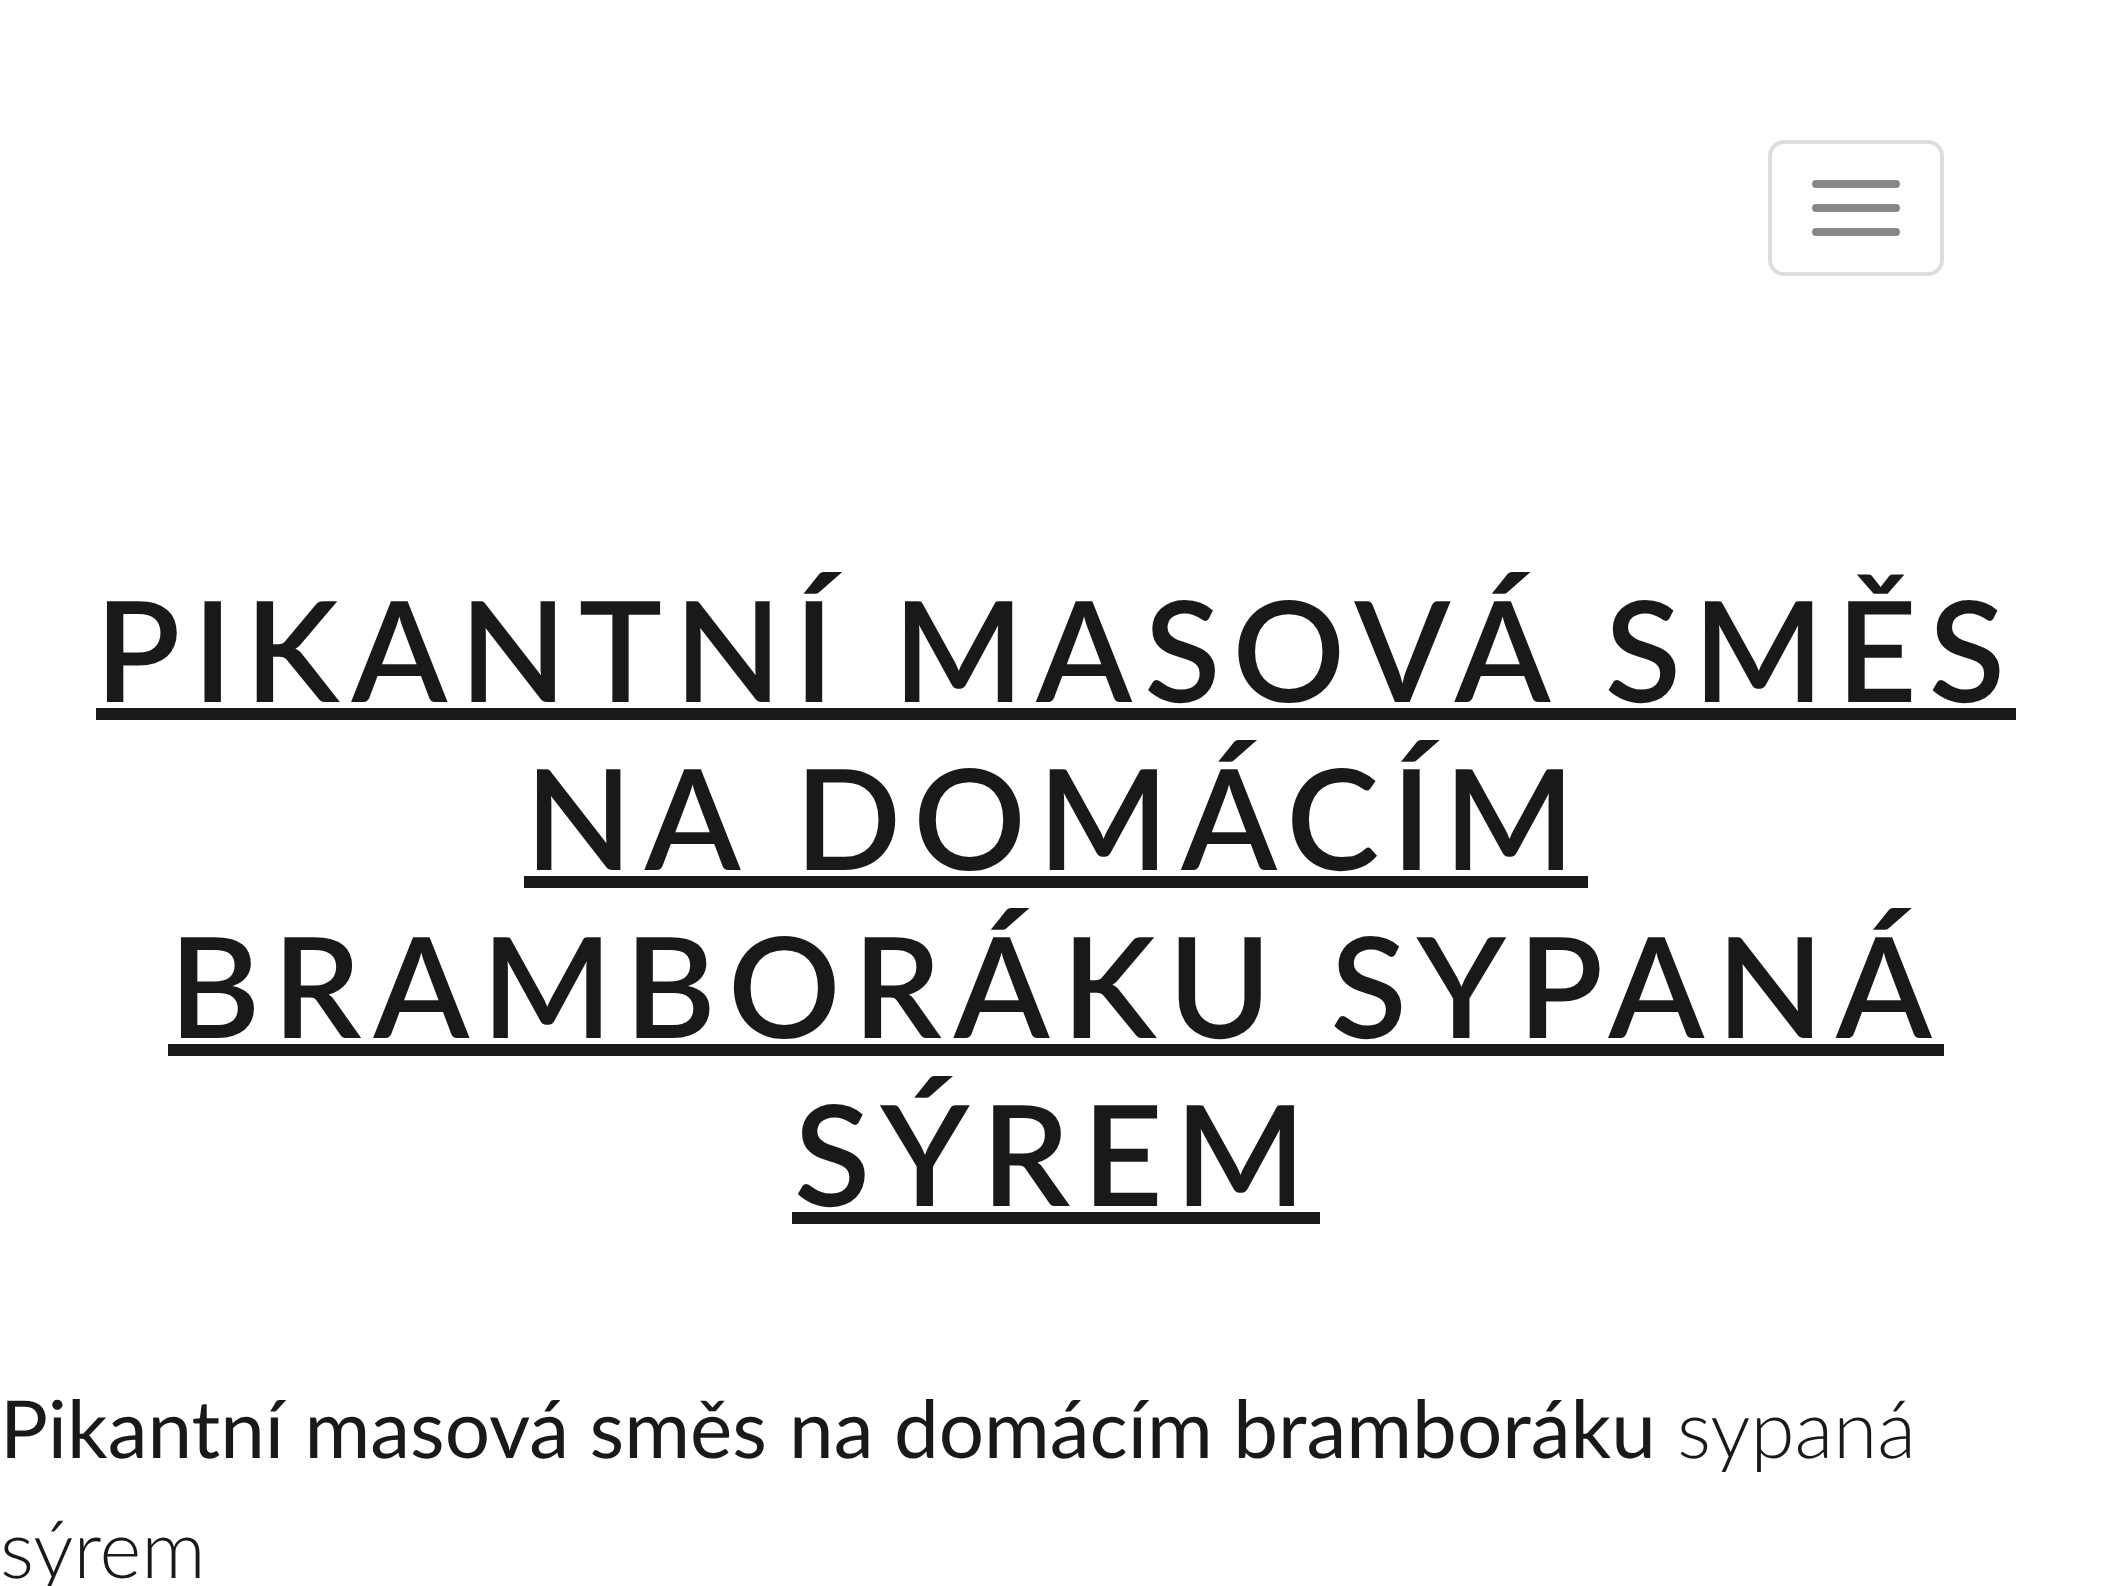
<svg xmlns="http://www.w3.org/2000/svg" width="2112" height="1586">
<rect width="100%" height="100%" fill="#fff"/>
<rect x="1770" y="142" width="172" height="132" rx="14" fill="none" stroke="#ddd" stroke-width="4"/>
<rect x="1812" y="180" width="88" height="8" rx="4" fill="#888"/>
<rect x="1812" y="204" width="88" height="8" rx="4" fill="#888"/>
<rect x="1812" y="228" width="88" height="8" rx="4" fill="#888"/>
<text x="95" y="702" style="font-family:Lato;font-size:140px;font-weight:600;letter-spacing:12px;fill:#191919">PIKANTNÍ MASOVÁ SMĚS</text>
<rect x="96" y="708" width="1920" height="12" fill="#191919"/>
<text x="525" y="870" style="font-family:Lato;font-size:140px;font-weight:600;letter-spacing:12px;fill:#191919">NA DOMÁCÍM</text>
<rect x="524" y="876" width="1064" height="12" fill="#191919"/>
<text x="169" y="1038" style="font-family:Lato;font-size:140px;font-weight:600;letter-spacing:12px;fill:#191919">BRAMBORÁKU SYPANÁ</text>
<rect x="168" y="1044" width="1776" height="12" fill="#191919"/>
<text x="794" y="1206" style="font-family:Lato;font-size:140px;font-weight:600;letter-spacing:12px;fill:#191919">SÝREM</text>
<rect x="792" y="1212" width="528" height="12" fill="#191919"/>
<text x="0" y="1458" style="font-family:Lato;font-size:80px;fill:#191919">Pikantní masová směs</text>
<text x="789" y="1458" style="font-family:Lato;font-size:80px;fill:#191919">na domácím bramboráku</text>
<text x="1677" y="1458" style="font-family:Lato;font-size:80px;font-weight:300;fill:#191919">sypaná</text>
<text x="0" y="1578" style="font-family:Lato;font-size:80px;font-weight:300;fill:#191919">sýrem</text>
</svg>
